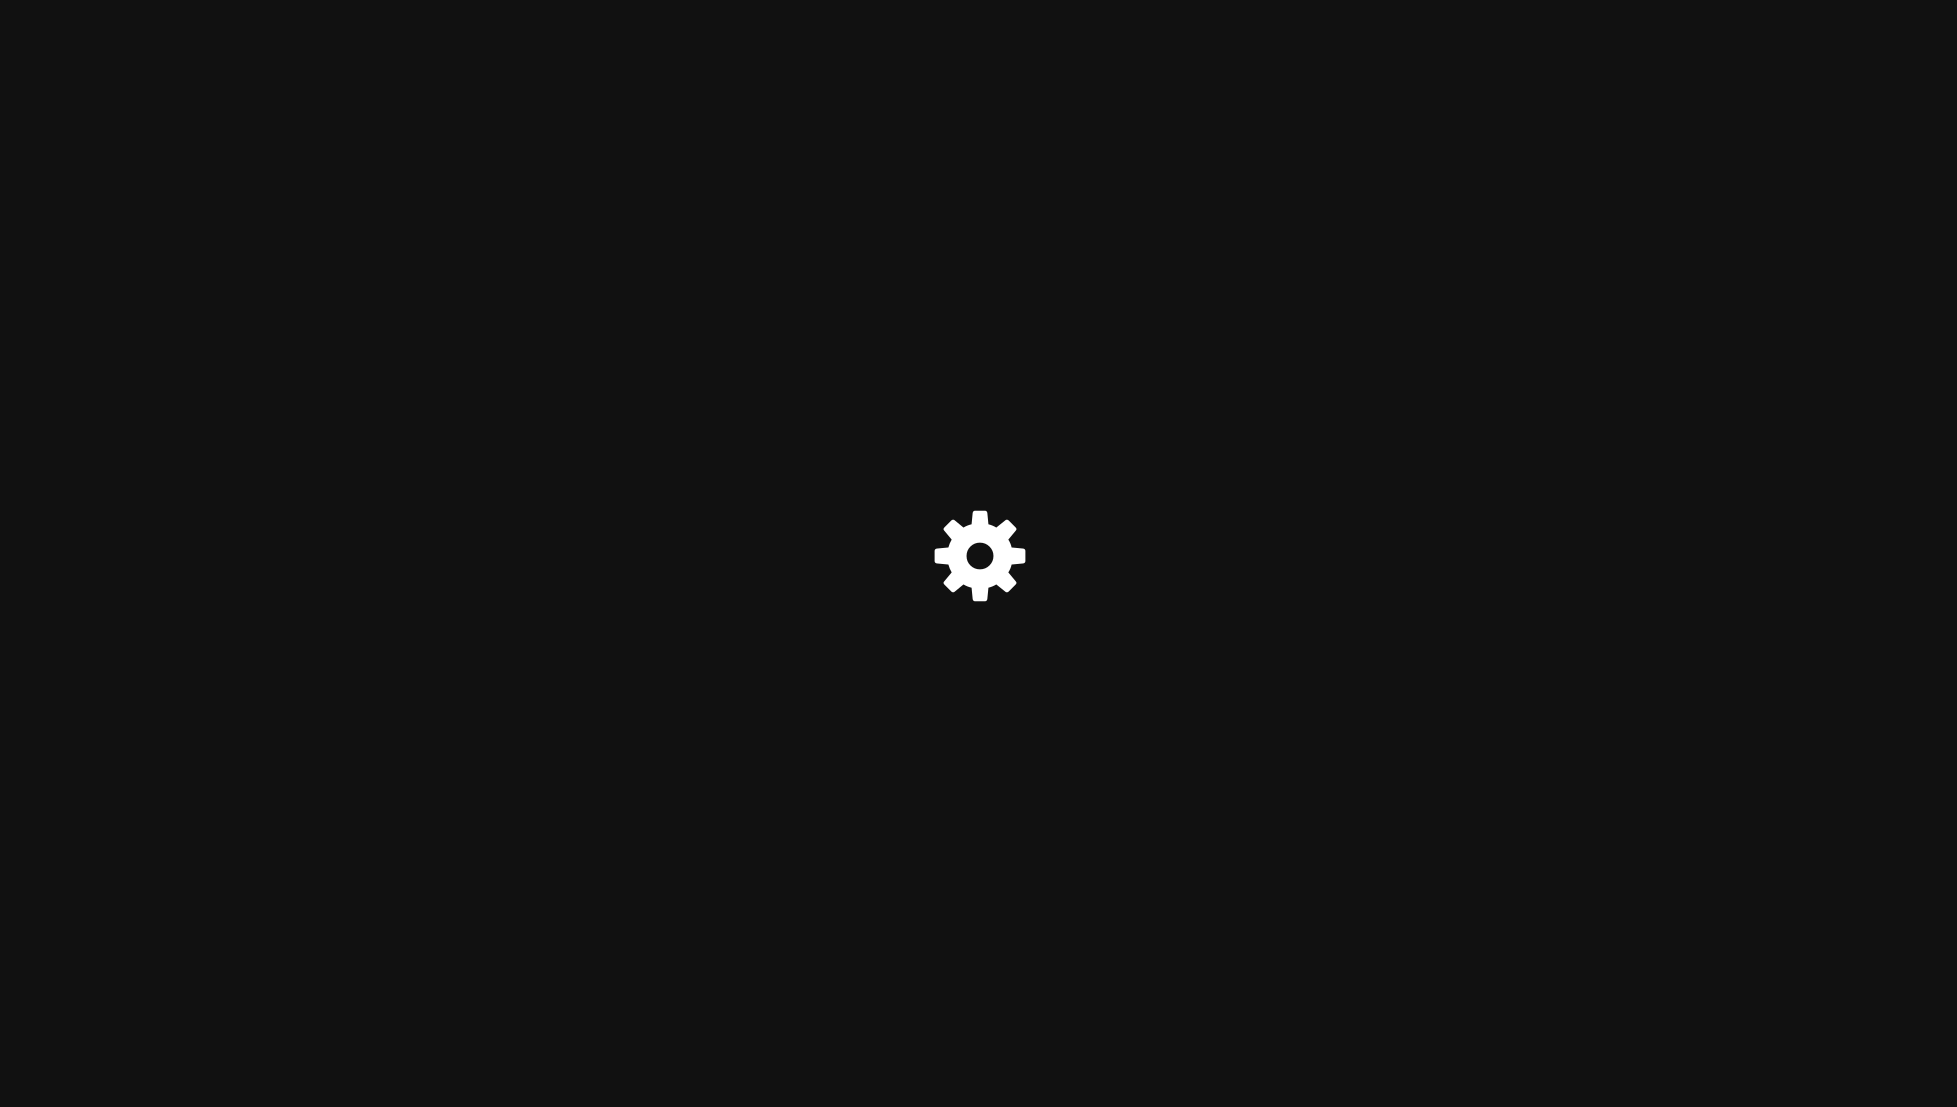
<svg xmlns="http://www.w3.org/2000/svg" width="1957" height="1107">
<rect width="100%" height="100%" fill="#111"/>
<image x="934" y="510" width="92" height="92" href="media/1.png"/>
</svg>
